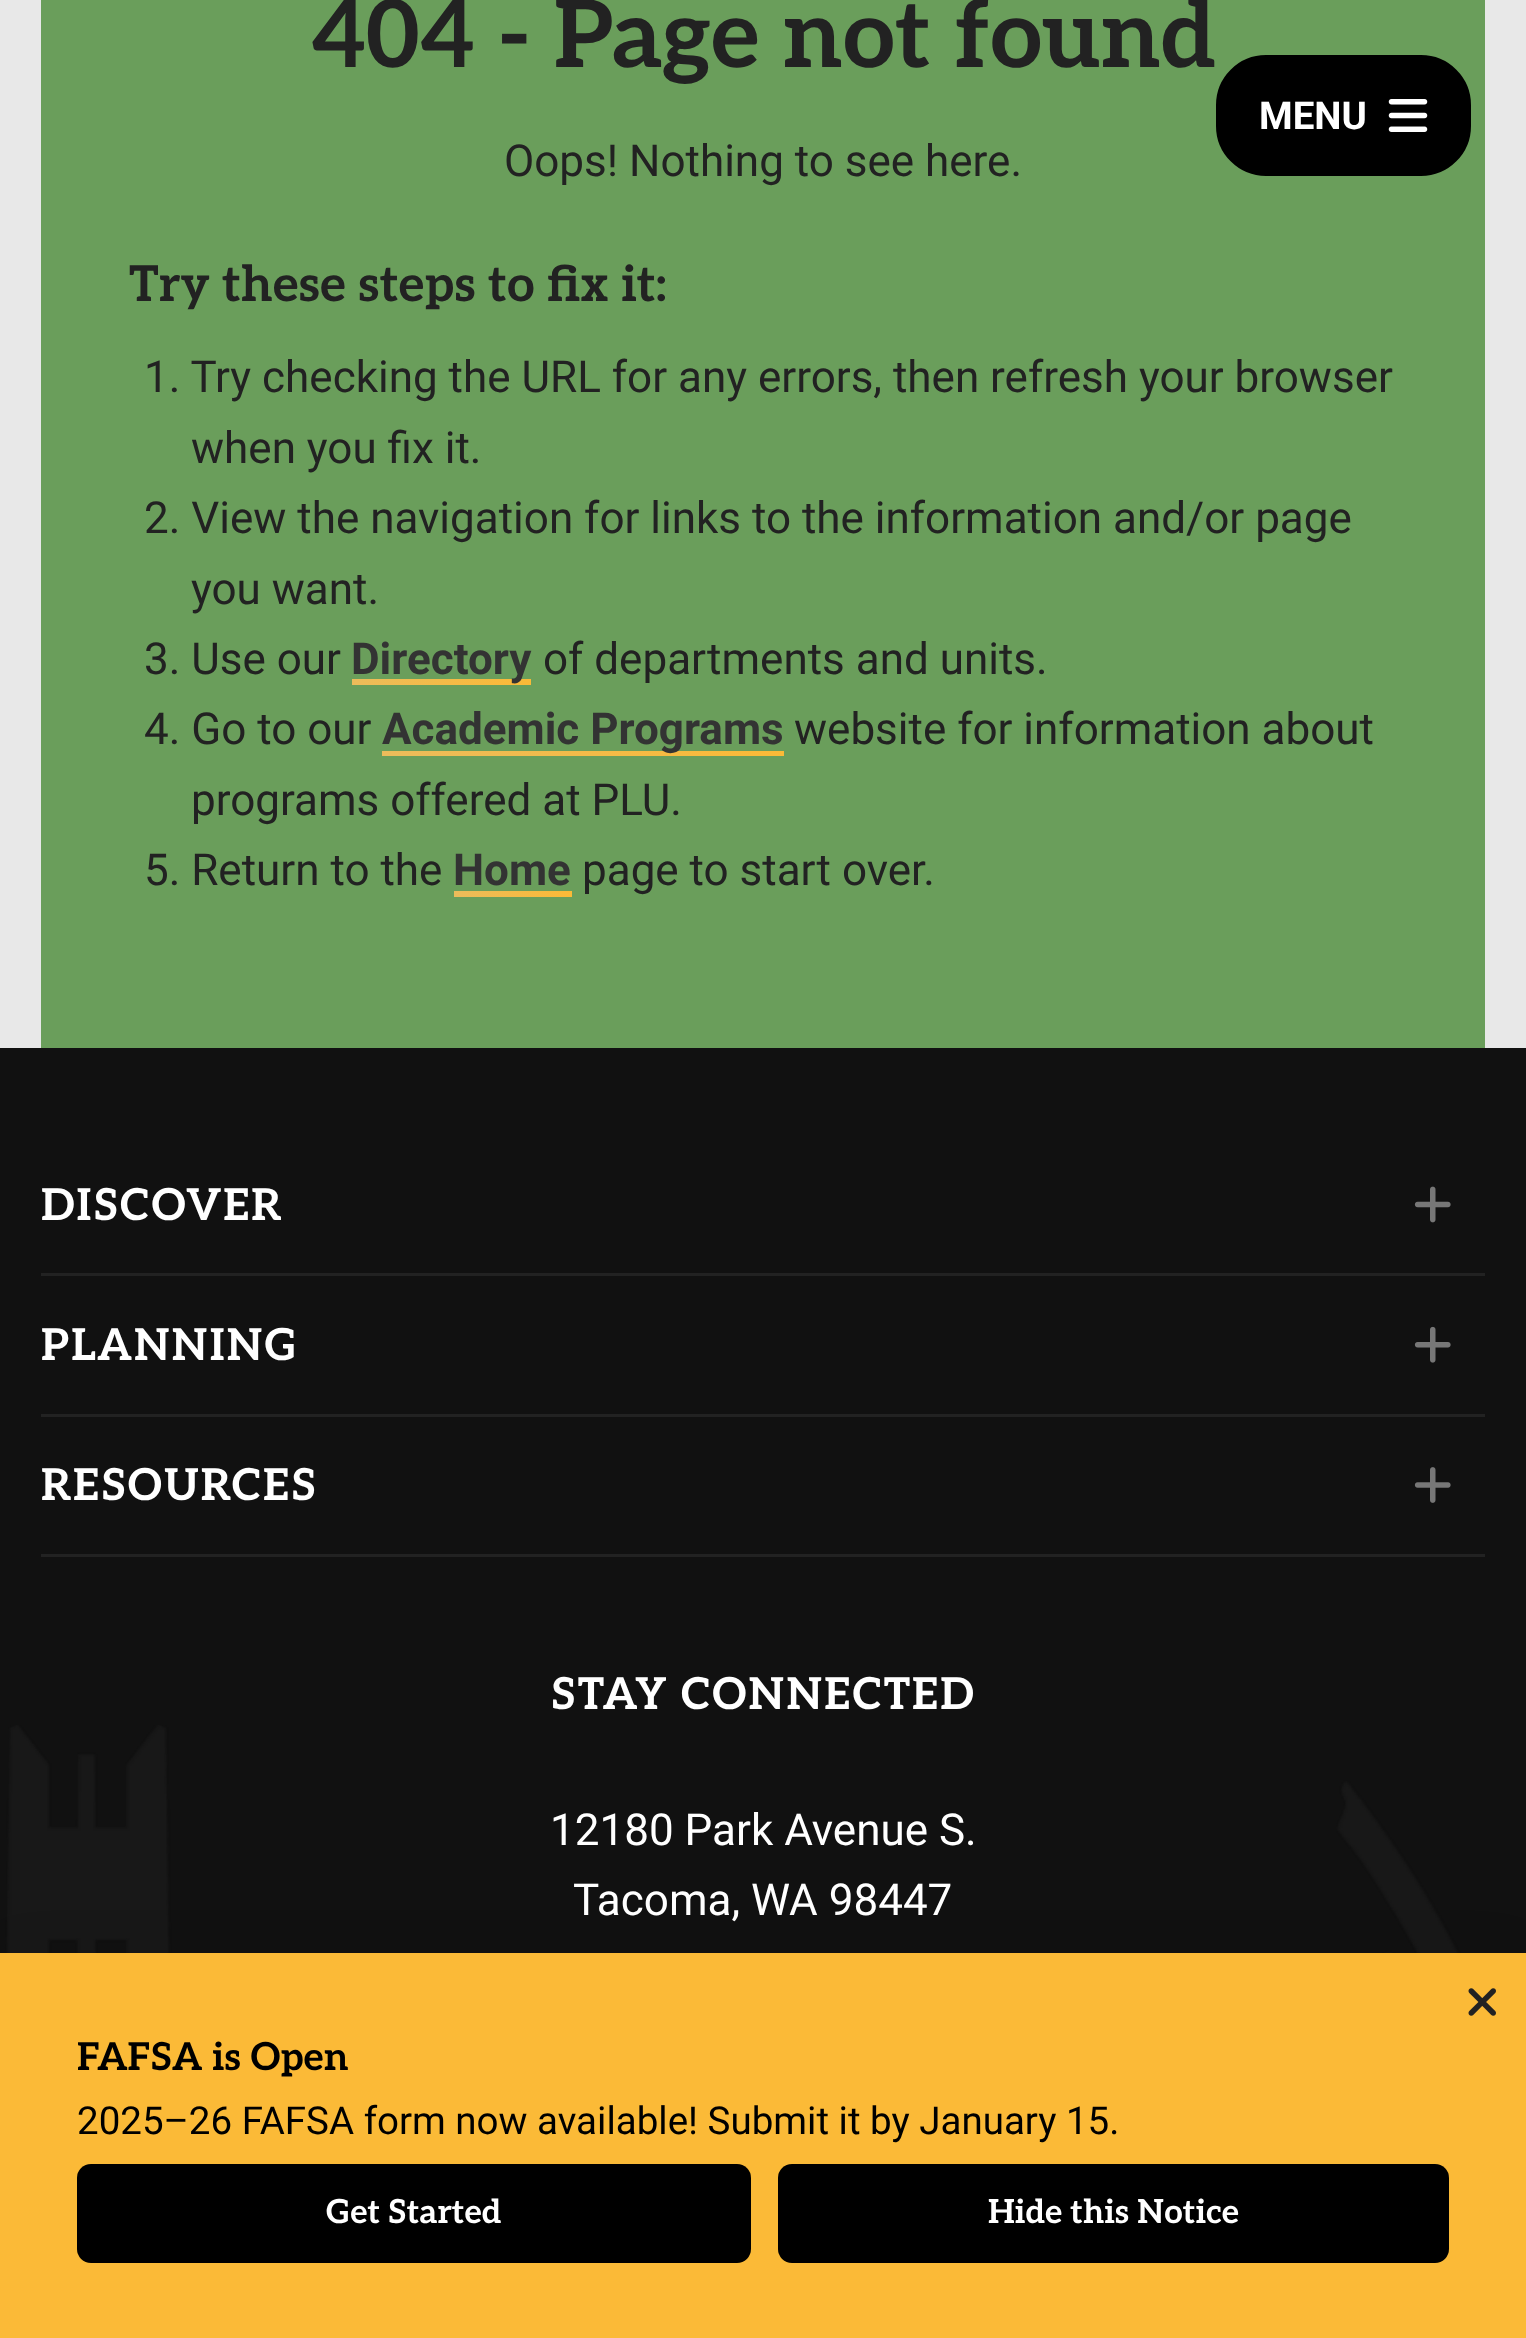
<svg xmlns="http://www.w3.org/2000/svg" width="1526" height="2338">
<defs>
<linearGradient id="g1" gradientUnits="userSpaceOnUse" x1="352" y1="682" x2="531" y2="682"><stop offset="0" stop-color="#ecbc5b"/><stop offset="1" stop-color="#fbba37"/></linearGradient>
<linearGradient id="g2" gradientUnits="userSpaceOnUse" x1="382" y1="754" x2="784" y2="754"><stop offset="0" stop-color="#ecbc5b"/><stop offset="1" stop-color="#fbba37"/></linearGradient>
<linearGradient id="g3" gradientUnits="userSpaceOnUse" x1="454" y1="894" x2="572" y2="894"><stop offset="0" stop-color="#ecbc5b"/><stop offset="1" stop-color="#fbba37"/></linearGradient>
</defs>
<rect width="100%" height="100%" fill="#e8e8e8"/>
<rect x="41" width="1444" height="1048" fill="#6a9e5b"/>
<text x="311" y="67" style="font-family:Aleo;font-size:93.5px;font-weight:bold;fill:#222">404 - Page not found</text>
<text x="504" y="176" style="font-family:Roboto;font-size:44px;fill:#222">Oops! Nothing to see here.</text>
<text x="129" y="301" style="font-family:Aleo;font-size:49.5px;font-weight:bold;fill:#222">Try these steps to fix it:</text>
<text x="144" y="392" style="font-family:Roboto;font-size:44px;fill:#222">1. Try checking the URL for any errors, then refresh your browser</text>
<text x="191" y="463" style="font-family:Roboto;font-size:44px;fill:#222">when you fix it.</text>
<text x="144" y="533" style="font-family:Roboto;font-size:44px;fill:#222">2. View the navigation for links to the information and/or page</text>
<text x="191" y="604" style="font-family:Roboto;font-size:44px;fill:#222">you want.</text>
<text x="144" y="674" style="font-family:Roboto;font-size:44px;fill:#222">3. Use our</text>
<rect x="352" y="679" width="179" height="6" fill="url(#g1)"/>
<text x="351" y="674" style="font-family:Roboto;font-size:44px;font-weight:bold;fill:#333">Directory</text>
<text x="543" y="674" style="font-family:Roboto;font-size:44px;fill:#222">of departments and units.</text>
<text x="144" y="744" style="font-family:Roboto;font-size:44px;fill:#222">4. Go to our</text>
<rect x="382" y="751" width="402" height="5" fill="url(#g2)"/>
<text x="382" y="744" style="font-family:Roboto;font-size:44px;font-weight:bold;fill:#333">Academic Programs</text>
<text x="794" y="744" style="font-family:Roboto;font-size:44px;fill:#222">website for information about</text>
<text x="191" y="815" style="font-family:Roboto;font-size:44px;fill:#222">programs offered at PLU.</text>
<text x="144" y="885" style="font-family:Roboto;font-size:44px;fill:#222">5. Return to the</text>
<text x="453" y="885" style="font-family:Roboto;font-size:44px;font-weight:bold;fill:#333">Home</text>
<rect x="454" y="891" width="118" height="6" fill="url(#g3)"/>
<text x="582" y="885" style="font-family:Roboto;font-size:44px;fill:#222">page to start over.</text>
<rect x="1219" y="58" width="249" height="115" rx="47" fill="#000" stroke="#000" stroke-width="6"/>
<text x="1259" y="129" style="font-family:Roboto;font-size:38.5px;font-weight:bold;fill:#fff">MENU</text>
<image x="1388" y="99" width="40" height="33" href="media/1.png"/>
<rect y="1048" width="1526" height="905" fill="#111"/>
<image x="5" y="1725" width="1456" height="228" href="media/2.png"/>
<rect x="41" y="1273" width="1444" height="3" fill="#222"/>
<text x="41" y="1220" style="font-family:Aleo;font-size:44px;font-weight:bold;letter-spacing:1.9px;fill:#fff">DISCOVER</text>
<image x="1414" y="1186" width="37" height="37" href="media/3.png"/>
<rect x="41" y="1414" width="1444" height="3" fill="#222"/>
<text x="41" y="1360" style="font-family:Aleo;font-size:44px;font-weight:bold;letter-spacing:1.9px;fill:#fff">PLANNING</text>
<image x="1414" y="1326" width="37" height="37" href="media/4.png"/>
<rect x="41" y="1554" width="1444" height="3" fill="#222"/>
<text x="41" y="1500" style="font-family:Aleo;font-size:44px;font-weight:bold;letter-spacing:1.9px;fill:#fff">RESOURCES</text>
<image x="1414" y="1467" width="37" height="36" href="media/5.png"/>
<text x="551" y="1709" style="font-family:Aleo;font-size:44px;font-weight:bold;letter-spacing:1.9px;fill:#fff">STAY CONNECTED</text>
<text x="550" y="1845" style="font-family:Roboto;font-size:44px;fill:#fff">12180 Park Avenue S.</text>
<text x="573" y="1915" style="font-family:Roboto;font-size:44px;fill:#fff">Tacoma, WA 98447</text>
<rect x="11" y="1966" width="1504" height="366" fill="#00000026" filter="blur(27.5px)"/>
<rect y="1953" width="1526" height="385" fill="#fbba37"/>
<image x="1468" y="1988" width="28" height="28" href="media/6.png"/>
<text x="77" y="2070" style="font-family:Aleo;font-size:38.5px;font-weight:bold;fill:#000">FAFSA is Open</text>
<text x="77" y="2134" style="font-family:Roboto;font-size:38.5px;fill:#000">2025–26 FAFSA form now available! Submit it by January 15.</text>
<rect x="77" y="2164" width="674" height="99" rx="14" fill="#000"/>
<text x="326" y="2223" style="font-family:Aleo;font-size:33px;font-weight:bold;fill:#fff">Get Started</text>
<rect x="778" y="2164" width="671" height="99" rx="14" fill="#000"/>
<text x="988" y="2223" style="font-family:Aleo;font-size:33px;font-weight:bold;fill:#fff">Hide this Notice</text>
</svg>
